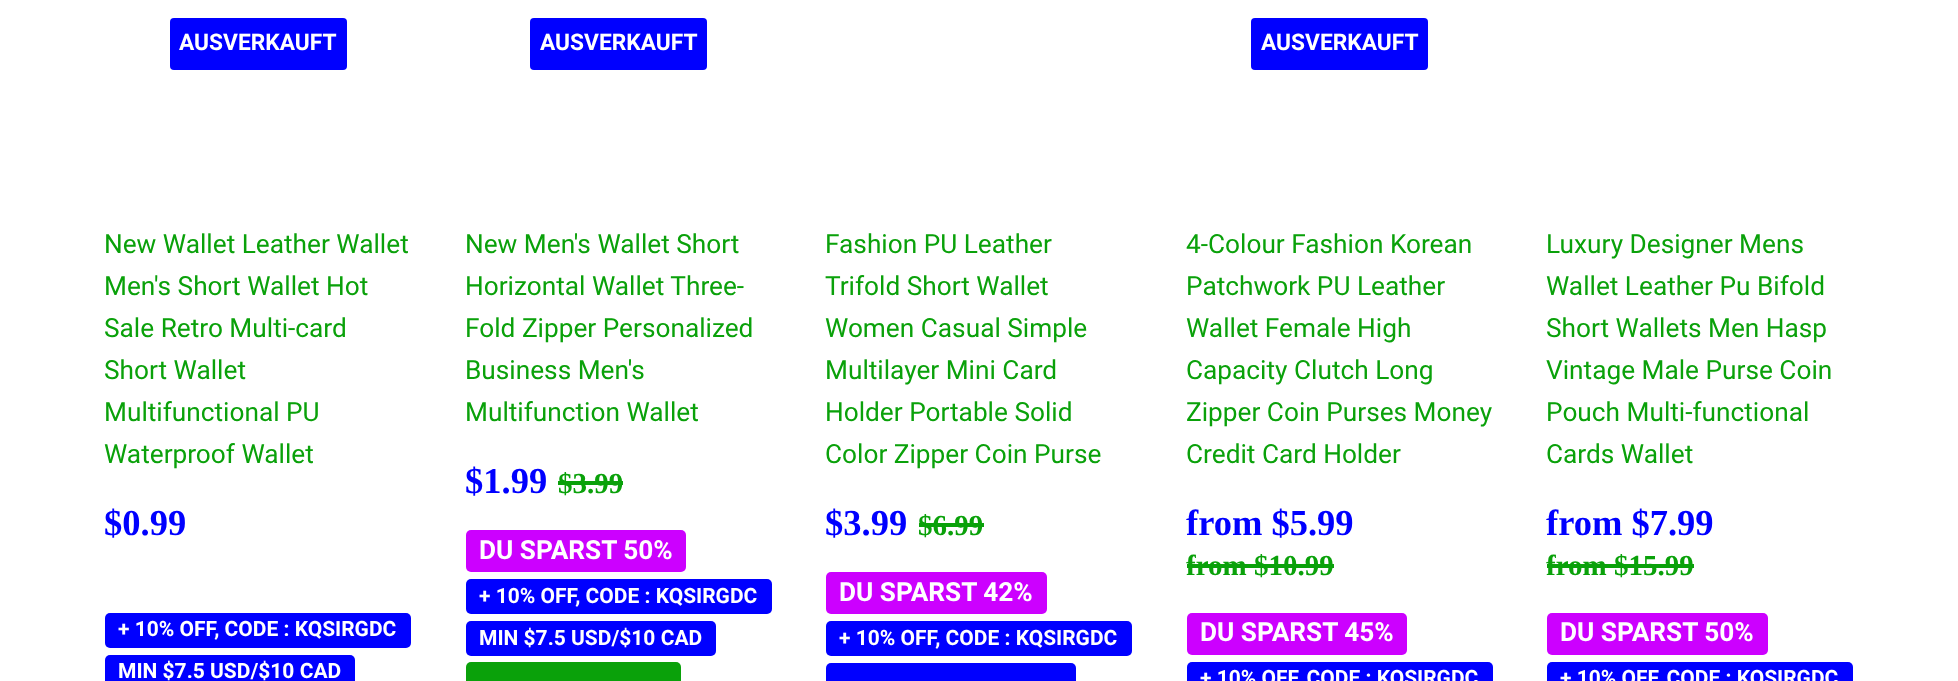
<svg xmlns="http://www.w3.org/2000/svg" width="1958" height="681">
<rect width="100%" height="100%" fill="#fff"/>
<rect x="170" y="18" width="177" height="52" rx="4" fill="#00f"/>
<text x="179" y="50" style="font-family:Roboto;font-size:22.75px;font-weight:bold;fill:#fff">AUSVERKAUFT</text>
<text x="104" y="253" style="font-family:Roboto;font-size:26.25px;fill:#0aa10a">New Wallet Leather Wallet</text>
<text x="104" y="295" style="font-family:Roboto;font-size:26.25px;fill:#0aa10a">Men's Short Wallet Hot</text>
<text x="104" y="337" style="font-family:Roboto;font-size:26.25px;fill:#0aa10a">Sale Retro Multi-card</text>
<text x="104" y="379" style="font-family:Roboto;font-size:26.25px;fill:#0aa10a">Short Wallet</text>
<text x="104" y="421" style="font-family:Roboto;font-size:26.25px;fill:#0aa10a">Multifunctional PU</text>
<text x="104" y="463" style="font-family:Roboto;font-size:26.25px;fill:#0aa10a">Waterproof Wallet</text>
<text x="104" y="535" style="font-family:Liberation Serif;font-size:36.5px;font-weight:bold;fill:#00f">$0.99</text>
<rect x="105" y="613" width="306" height="35" rx="5" fill="#00f"/>
<text x="118" y="636" style="font-family:Roboto;font-size:21px;font-weight:bold;fill:#fff">+ 10% OFF, CODE : KQSIRGDC</text>
<rect x="105" y="655" width="250" height="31" rx="5" fill="#00f"/>
<text x="118" y="678" style="font-family:Roboto;font-size:21px;font-weight:bold;fill:#fff">MIN $7.5 USD/$10 CAD</text>
<rect x="530" y="18" width="177" height="52" rx="4" fill="#00f"/>
<text x="540" y="50" style="font-family:Roboto;font-size:22.75px;font-weight:bold;fill:#fff">AUSVERKAUFT</text>
<text x="465" y="253" style="font-family:Roboto;font-size:26.25px;fill:#0aa10a">New Men's Wallet Short</text>
<text x="465" y="295" style="font-family:Roboto;font-size:26.25px;fill:#0aa10a">Horizontal Wallet Three-</text>
<text x="465" y="337" style="font-family:Roboto;font-size:26.25px;fill:#0aa10a">Fold Zipper Personalized</text>
<text x="465" y="379" style="font-family:Roboto;font-size:26.25px;fill:#0aa10a">Business Men's</text>
<text x="465" y="421" style="font-family:Roboto;font-size:26.25px;fill:#0aa10a">Multifunction Wallet</text>
<text x="465" y="493" style="font-family:Liberation Serif;font-size:36.5px;font-weight:bold;fill:#00f">$1.99</text>
<text x="558" y="493" style="font-family:Liberation Serif;font-size:29px;font-weight:bold;fill:#0aa10a">$3.99</text>
<rect x="558" y="481" width="65" height="4" fill="#0aa10a"/>
<rect x="466" y="530" width="220" height="42" rx="5" fill="#c0f"/>
<text x="479" y="559" style="font-family:Roboto;font-size:26.25px;font-weight:bold;fill:#fff">DU SPARST 50%</text>
<rect x="466" y="579" width="306" height="35" rx="5" fill="#00f"/>
<text x="479" y="603" style="font-family:Roboto;font-size:21px;font-weight:bold;fill:#fff">+ 10% OFF, CODE : KQSIRGDC</text>
<rect x="466" y="621" width="250" height="35" rx="5" fill="#00f"/>
<text x="479" y="645" style="font-family:Roboto;font-size:21px;font-weight:bold;fill:#fff">MIN $7.5 USD/$10 CAD</text>
<rect x="466" y="662" width="215" height="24" rx="5" fill="#0aa10a"/>
<text x="825" y="253" style="font-family:Roboto;font-size:26.25px;fill:#0aa10a">Fashion PU Leather</text>
<text x="825" y="295" style="font-family:Roboto;font-size:26.25px;fill:#0aa10a">Trifold Short Wallet</text>
<text x="825" y="337" style="font-family:Roboto;font-size:26.25px;fill:#0aa10a">Women Casual Simple</text>
<text x="825" y="379" style="font-family:Roboto;font-size:26.25px;fill:#0aa10a">Multilayer Mini Card</text>
<text x="825" y="421" style="font-family:Roboto;font-size:26.25px;fill:#0aa10a">Holder Portable Solid</text>
<text x="825" y="463" style="font-family:Roboto;font-size:26.25px;fill:#0aa10a">Color Zipper Coin Purse</text>
<text x="825" y="535" style="font-family:Liberation Serif;font-size:36.5px;font-weight:bold;fill:#00f">$3.99</text>
<text x="918" y="535" style="font-family:Liberation Serif;font-size:29px;font-weight:bold;fill:#0aa10a">$6.99</text>
<rect x="919" y="523" width="65" height="4" fill="#0aa10a"/>
<rect x="826" y="572" width="221" height="42" rx="5" fill="#c0f"/>
<text x="839" y="601" style="font-family:Roboto;font-size:26.25px;font-weight:bold;fill:#fff">DU SPARST 42%</text>
<rect x="826" y="621" width="306" height="35" rx="5" fill="#00f"/>
<text x="839" y="645" style="font-family:Roboto;font-size:21px;font-weight:bold;fill:#fff">+ 10% OFF, CODE : KQSIRGDC</text>
<rect x="826" y="663" width="250" height="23" rx="5" fill="#00f"/>
<rect x="1251" y="18" width="177" height="52" rx="4" fill="#00f"/>
<text x="1261" y="50" style="font-family:Roboto;font-size:22.75px;font-weight:bold;fill:#fff">AUSVERKAUFT</text>
<text x="1186" y="253" style="font-family:Roboto;font-size:26.25px;fill:#0aa10a">4-Colour Fashion Korean</text>
<text x="1186" y="295" style="font-family:Roboto;font-size:26.25px;fill:#0aa10a">Patchwork PU Leather</text>
<text x="1186" y="337" style="font-family:Roboto;font-size:26.25px;fill:#0aa10a">Wallet Female High</text>
<text x="1186" y="379" style="font-family:Roboto;font-size:26.25px;fill:#0aa10a">Capacity Clutch Long</text>
<text x="1186" y="421" style="font-family:Roboto;font-size:26.25px;fill:#0aa10a">Zipper Coin Purses Money</text>
<text x="1186" y="463" style="font-family:Roboto;font-size:26.25px;fill:#0aa10a">Credit Card Holder</text>
<text x="1186" y="535" style="font-family:Liberation Serif;font-size:36.5px;font-weight:bold;fill:#00f">from $5.99</text>
<text x="1186" y="575" style="font-family:Liberation Serif;font-size:29px;font-weight:bold;fill:#0aa10a">from $10.99</text>
<rect x="1187" y="564" width="147" height="4" fill="#0aa10a"/>
<rect x="1187" y="613" width="220" height="42" rx="5" fill="#c0f"/>
<text x="1200" y="641" style="font-family:Roboto;font-size:26.25px;font-weight:bold;fill:#fff">DU SPARST 45%</text>
<rect x="1187" y="662" width="306" height="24" rx="5" fill="#00f"/>
<text x="1200" y="685" style="font-family:Roboto;font-size:21px;font-weight:bold;fill:#fff">+ 10% OFF, CODE : KQSIRGDC</text>
<text x="1546" y="253" style="font-family:Roboto;font-size:26.25px;fill:#0aa10a">Luxury Designer Mens</text>
<text x="1546" y="295" style="font-family:Roboto;font-size:26.25px;fill:#0aa10a">Wallet Leather Pu Bifold</text>
<text x="1546" y="337" style="font-family:Roboto;font-size:26.25px;fill:#0aa10a">Short Wallets Men Hasp</text>
<text x="1546" y="379" style="font-family:Roboto;font-size:26.25px;fill:#0aa10a">Vintage Male Purse Coin</text>
<text x="1546" y="421" style="font-family:Roboto;font-size:26.25px;fill:#0aa10a">Pouch Multi-functional</text>
<text x="1546" y="463" style="font-family:Roboto;font-size:26.25px;fill:#0aa10a">Cards Wallet</text>
<text x="1546" y="535" style="font-family:Liberation Serif;font-size:36.5px;font-weight:bold;fill:#00f">from $7.99</text>
<text x="1546" y="575" style="font-family:Liberation Serif;font-size:29px;font-weight:bold;fill:#0aa10a">from $15.99</text>
<rect x="1547" y="564" width="147" height="4" fill="#0aa10a"/>
<rect x="1547" y="613" width="221" height="42" rx="5" fill="#c0f"/>
<text x="1560" y="641" style="font-family:Roboto;font-size:26.25px;font-weight:bold;fill:#fff">DU SPARST 50%</text>
<rect x="1547" y="662" width="306" height="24" rx="5" fill="#00f"/>
<text x="1560" y="685" style="font-family:Roboto;font-size:21px;font-weight:bold;fill:#fff">+ 10% OFF, CODE : KQSIRGDC</text>
</svg>
